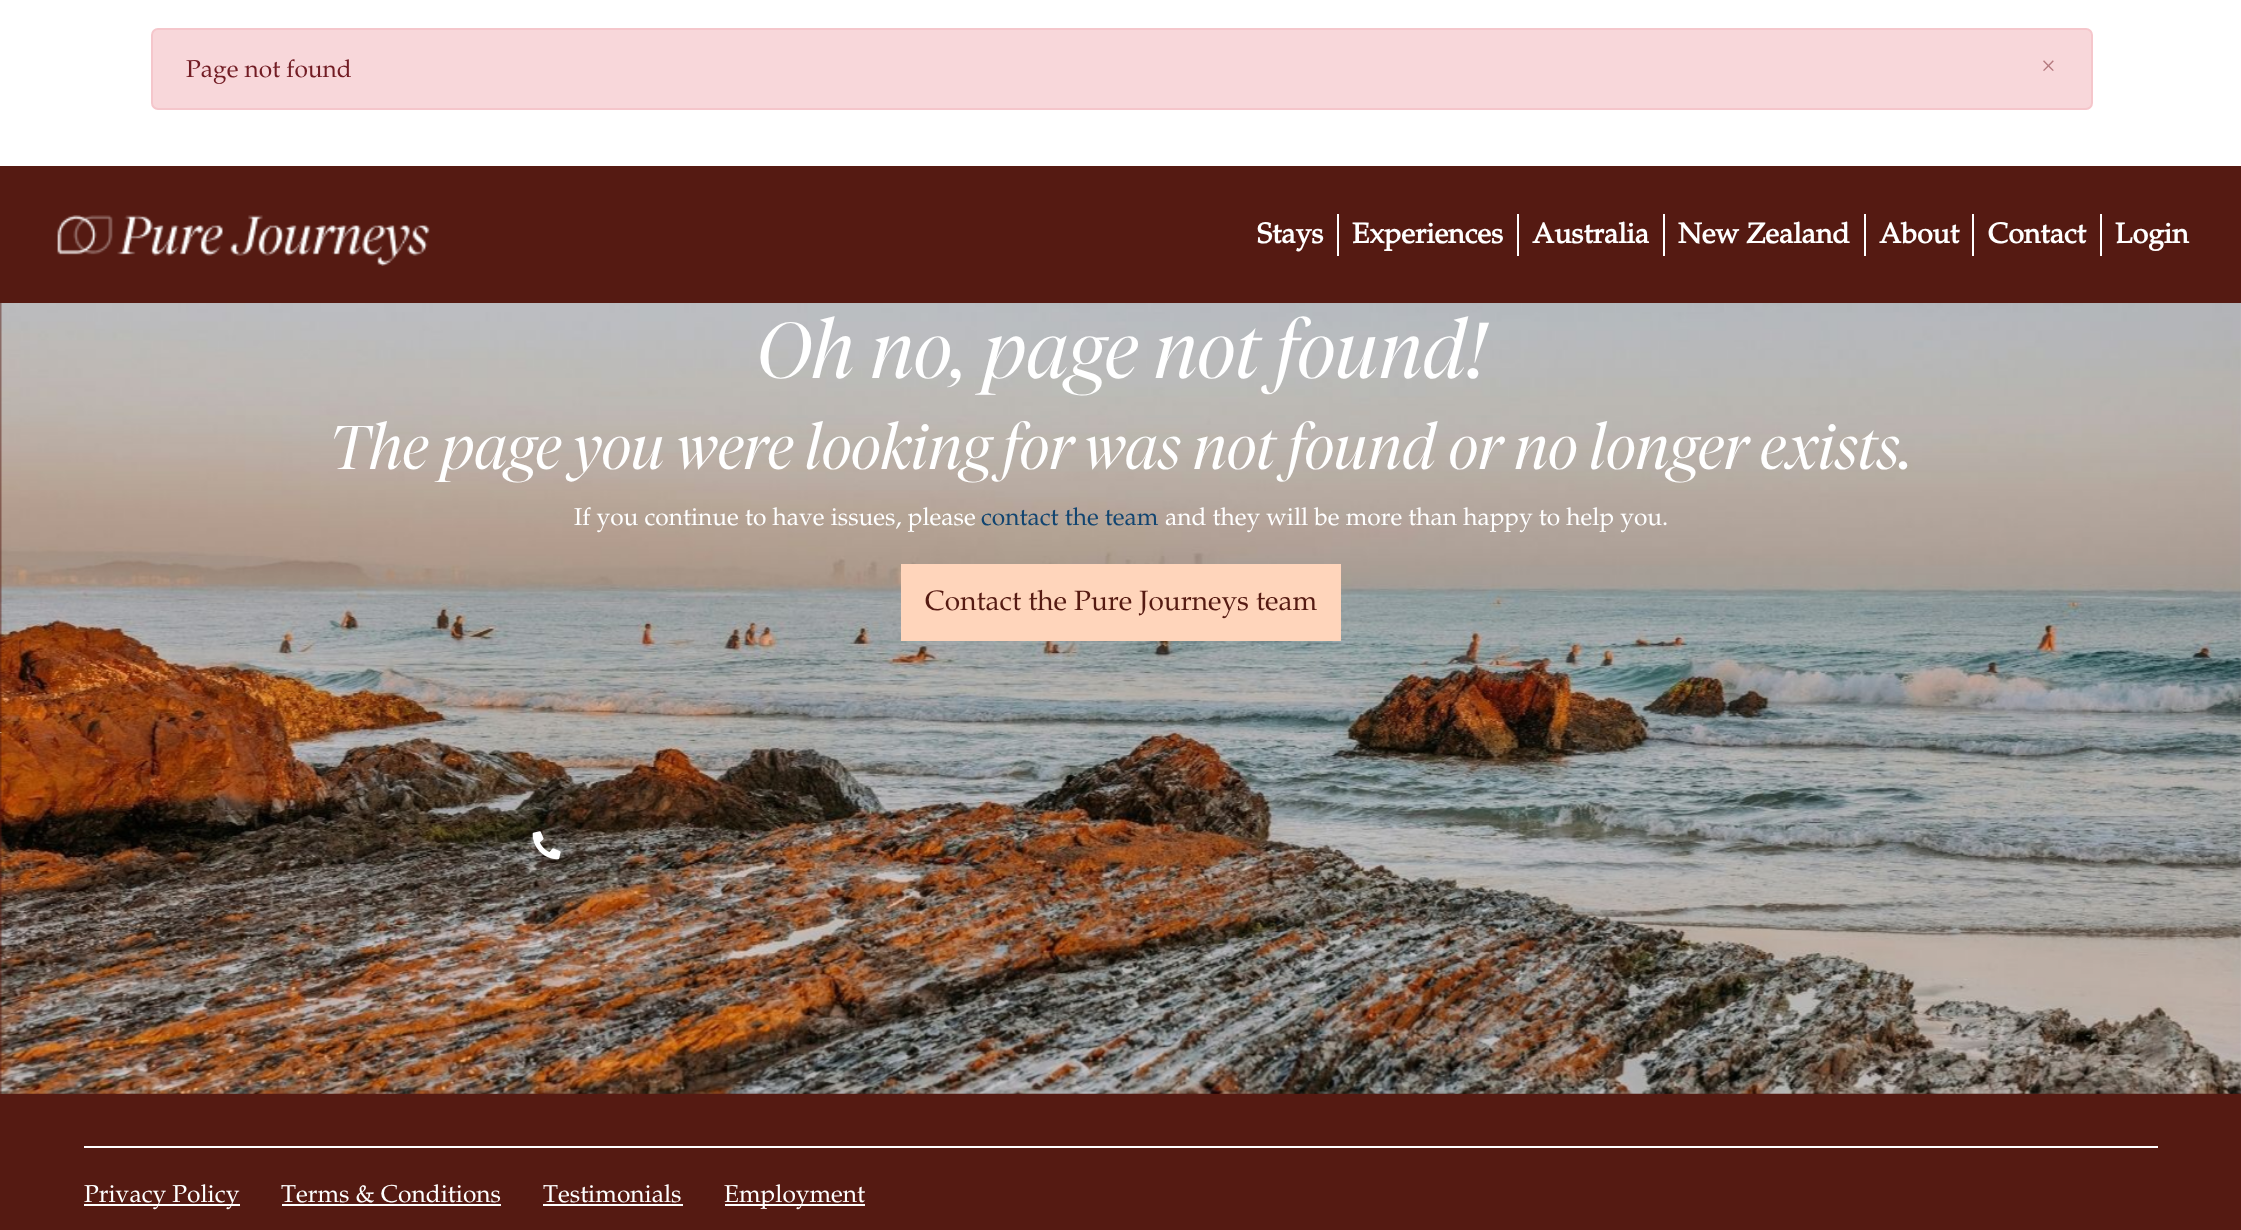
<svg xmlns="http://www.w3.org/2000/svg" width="2241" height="1230">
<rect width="100%" height="100%" fill="#fff"/>
<rect x="152" y="29" width="1940" height="80" rx="6" fill="#f8d7da" stroke="#f5c6cb" stroke-width="2"/>
<text x="186" y="77" style="font-family:Palatino;font-size:24.5px;fill:#721c24">Page not found</text>
<text x="2041" y="72" style="font-family:Palatino;font-size:24.5px;fill:#b57a7f">×</text>
<rect y="166" width="2241" height="137" fill="#551a12"/>
<image x="57" y="215" width="373" height="51" href="media/1.png"/>
<rect x="1337" y="214" width="2" height="42" fill="#fff"/>
<text x="1257" y="243" style="font-family:Palatino;font-size:28.5px;font-weight:bold;fill:#fff">Stays</text>
<rect x="1517" y="214" width="2" height="42" fill="#fff"/>
<text x="1352" y="243" style="font-family:Palatino;font-size:28.5px;font-weight:bold;fill:#fff">Experiences</text>
<rect x="1663" y="214" width="2" height="42" fill="#fff"/>
<text x="1532" y="243" style="font-family:Palatino;font-size:28.5px;font-weight:bold;fill:#fff">Australia</text>
<rect x="1864" y="214" width="2" height="42" fill="#fff"/>
<text x="1678" y="243" style="font-family:Palatino;font-size:28.5px;font-weight:bold;fill:#fff">New Zealand</text>
<rect x="1972" y="214" width="2" height="42" fill="#fff"/>
<text x="1879" y="243" style="font-family:Palatino;font-size:28.5px;font-weight:bold;fill:#fff">About</text>
<rect x="2100" y="214" width="2" height="42" fill="#fff"/>
<text x="1988" y="243" style="font-family:Palatino;font-size:28.5px;font-weight:bold;fill:#fff">Contact</text>
<text x="2115" y="243" style="font-family:Palatino;font-size:28.5px;font-weight:bold;fill:#fff">Login</text>
<rect y="303" width="2" height="429" fill="#551a12"/>
<rect y="732" width="2" height="1" fill="#dee2e6"/>
<rect y="733" width="2241" height="497" fill="#551a12"/>
<image x="0" y="303" width="2241" height="791" href="media/2.png"/>
<text x="757" y="378" style="font-family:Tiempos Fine;font-size:78.75px;font-weight:300;font-style:italic;fill:#fff">Oh no, page not found!</text>
<text x="330" y="469" style="font-family:Tiempos Fine;font-size:61.25px;font-weight:300;font-style:italic;fill:#fff">The page you were looking for was not found or no longer exists.</text>
<text x="574" y="525" style="font-family:Palatino;font-size:24.5px;fill:#fff">If you continue to have issues, please</text>
<text x="981" y="525" style="font-family:Palatino;font-size:24.5px;fill:#114470">contact the team</text>
<text x="1165" y="525" style="font-family:Palatino;font-size:24.5px;fill:#fff">and they will be more than happy to help you.</text>
<rect x="901" y="564" width="440" height="77" fill="#ffd5bb"/>
<text x="925" y="610" style="font-family:Palatino;font-size:28px;fill:#551a12">Contact the Pure Journeys team</text>
<image x="532" y="831" width="29" height="29" href="media/3.png"/>
<rect x="84" y="1146" width="2074" height="2" fill="#fff"/>
<rect x="84" y="1204" width="156" height="2" fill="#fff"/>
<text x="84" y="1202" style="font-family:Palatino;font-size:24.5px;fill:#fff">Privacy Policy</text>
<text x="281" y="1202" style="font-family:Palatino;font-size:24.5px;fill:#fff">Terms &amp; Conditions</text>
<rect x="282" y="1204" width="219" height="2" fill="#fff"/>
<text x="543" y="1202" style="font-family:Palatino;font-size:24.5px;fill:#fff">Testimonials</text>
<rect x="543" y="1204" width="140" height="2" fill="#fff"/>
<rect x="725" y="1204" width="140" height="2" fill="#fff"/>
<text x="724" y="1202" style="font-family:Palatino;font-size:24.5px;fill:#fff">Employment</text>
</svg>
